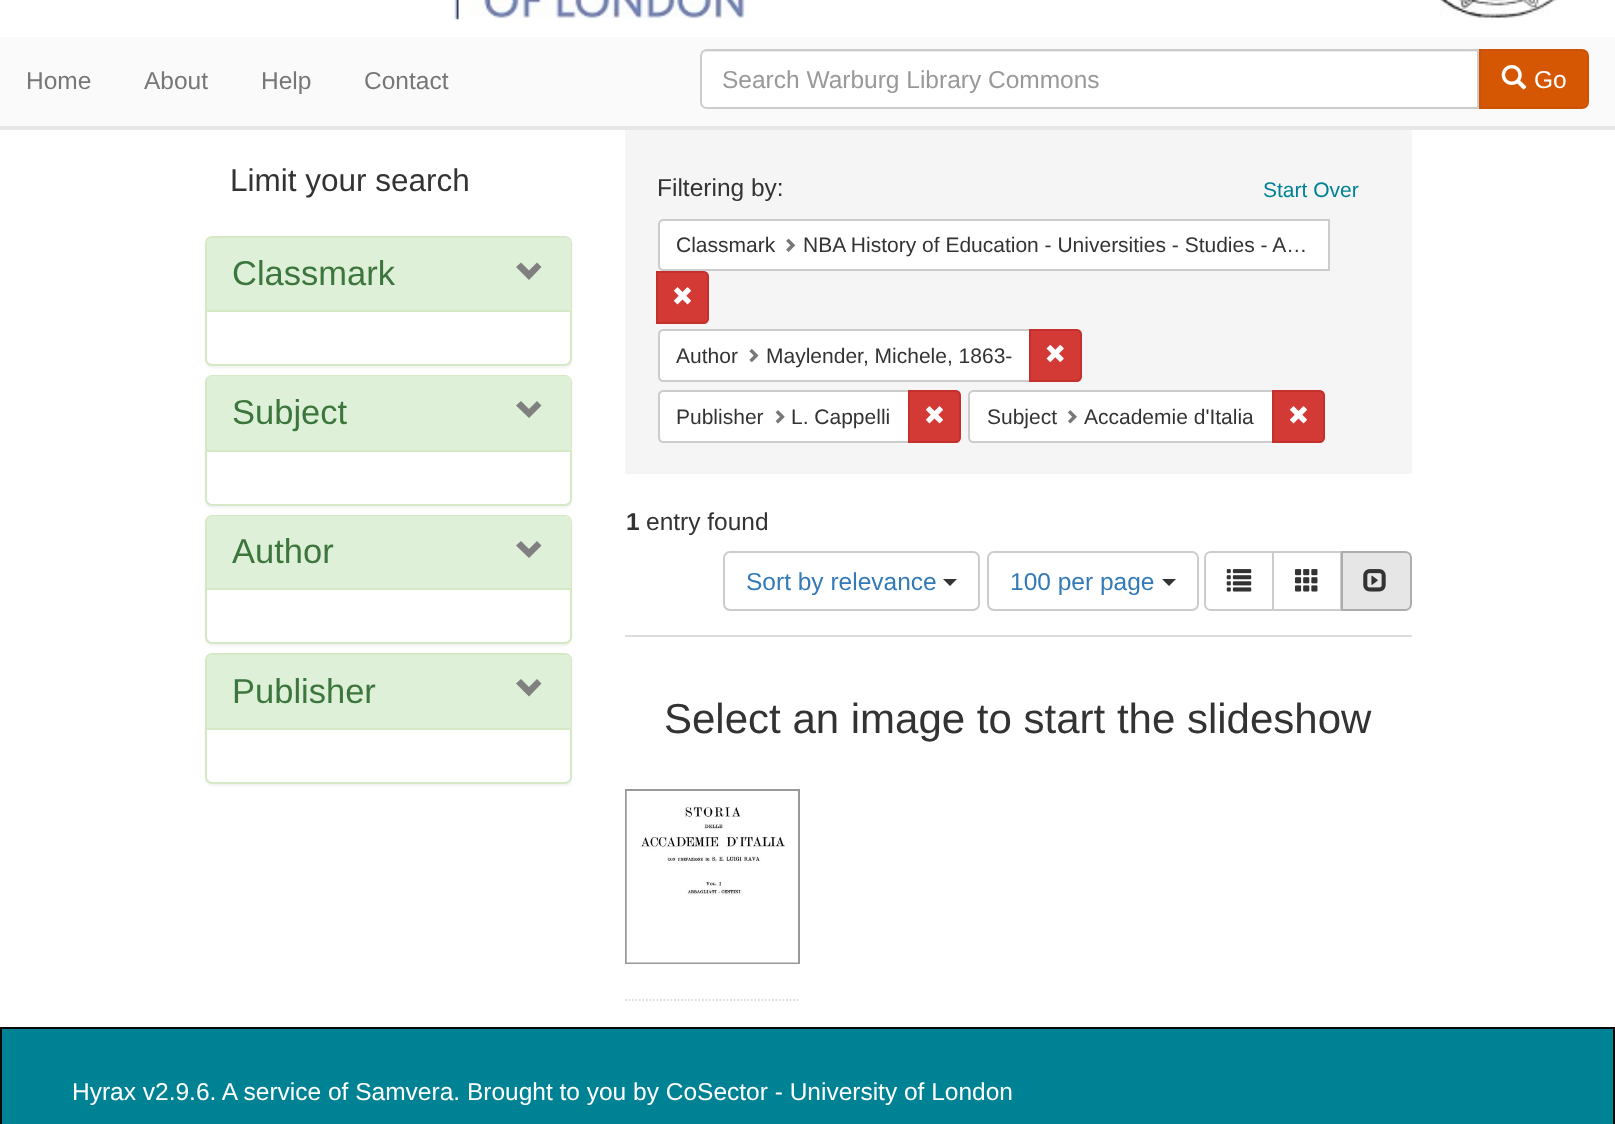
<svg xmlns="http://www.w3.org/2000/svg" width="1615" height="1124">
<rect width="100%" height="100%" fill="#fff"/>
<rect y="126" width="1615" height="4" fill="#e7e7e7"/>
<image x="452" y="0" width="293" height="20" href="media/1.png"/>
<image x="1440" y="0" width="117" height="19" href="media/2.png"/>
<rect y="37" width="1615" height="89" fill="#fafafa"/>
<text x="26" y="89" style="font-family:Liberation Sans;font-size:24.5px;fill:#777">Home</text>
<text x="144" y="89" style="font-family:Liberation Sans;font-size:24.5px;fill:#777">About</text>
<text x="261" y="89" style="font-family:Liberation Sans;font-size:24.5px;fill:#777">Help</text>
<text x="364" y="89" style="font-family:Liberation Sans;font-size:24.5px;fill:#777">Contact</text>
<path d="M707 49h772v60h-772c-4 0-7-3-7-7v-46c0-4 3-7 7-7z" fill="#fff"/>
<path d="M707 52h770v-1h-770c-4 0-5 4-5 7c0-3 2-6 5-6z" fill="#ececec"/>
<path d="M707 50h771v58h-771c-3.5 0-6-2.5-6-6v-46c0-3.5 2.5-6 6-6z" fill="none" stroke="#ccc" stroke-width="2"/>
<text x="722" y="88" style="font-family:Liberation Sans;font-size:24.5px;fill:#999">Search Warburg Library Commons</text>
<path d="M1480 50h102c3.5 0 6 2.5 6 6v46c0 3.5-2.5 6-6 6h-102z" fill="#d65703" stroke="#cb5303" stroke-width="2"/>
<image x="1501" y="64" width="26" height="26" href="media/3.png"/>
<text x="1534" y="88" style="font-family:Liberation Sans;font-size:24.5px;fill:#fff">Go</text>
<text x="230" y="191" style="font-family:Liberation Sans;font-size:31.5px;fill:#333">Limit your search</text>
<rect x="205" y="238" width="367" height="130" rx="7" fill="#0000000d" filter="blur(1px)"/>
<rect x="206" y="237" width="365" height="128" rx="6" fill="#fff" stroke="#d6e9c6" stroke-width="2"/>
<path d="M212 238h354c3 0 5 2 5 5v67h-364v-67c0-3 2-5 5-5z" fill="#dff0d8"/>
<text x="232" y="285" style="font-family:Liberation Sans;font-size:34.5px;fill:#3c763d">Classmark</text>
<path d="M541.5 267l-12.5 13l-13-13l5-4.5l8 8l8-8z" fill="#808080"/>
<rect x="207" y="310" width="364" height="2" fill="#d6e9c6"/>
<rect x="205" y="376" width="367" height="132" rx="7" fill="#0000000d" filter="blur(1px)"/>
<rect x="206" y="376" width="365" height="129" rx="6" fill="#fff" stroke="#d6e9c6" stroke-width="2"/>
<path d="M212 376h354c3 0 5 2 5 5v69h-364v-69c0-3 2-5 5-5z" fill="#dff0d8"/>
<text x="232" y="424" style="font-family:Liberation Sans;font-size:34.5px;fill:#3c763d">Subject</text>
<path d="M541.5 405.5l-12.5 12.5l-13-12.5l5-4.5l8 8l8-8z" fill="#808080"/>
<rect x="207" y="450" width="364" height="2" fill="#d6e9c6"/>
<rect x="205" y="516" width="367" height="130" rx="7" fill="#0000000d" filter="blur(1px)"/>
<rect x="206" y="516" width="365" height="127" rx="6" fill="#fff" stroke="#d6e9c6" stroke-width="2"/>
<path d="M212 516h354c3 0 5 2 5 5v67h-364v-67c0-3 2-5 5-5z" fill="#dff0d8"/>
<text x="232" y="563" style="font-family:Liberation Sans;font-size:34.5px;fill:#3c763d">Author</text>
<path d="M541.5 545.5l-12.5 12.5l-13-12.5l5-4.5l8 8l8-8z" fill="#808080"/>
<rect x="207" y="588" width="364" height="2" fill="#d6e9c6"/>
<rect x="205" y="655" width="367" height="131" rx="7" fill="#0000000d" filter="blur(1px)"/>
<rect x="206" y="654" width="365" height="129" rx="6" fill="#fff" stroke="#d6e9c6" stroke-width="2"/>
<path d="M212 655h354c3 0 5 2 5 5v68h-364v-68c0-3 2-5 5-5z" fill="#dff0d8"/>
<text x="232" y="703" style="font-family:Liberation Sans;font-size:34.5px;fill:#3c763d">Publisher</text>
<path d="M541.5 683.5l-12.5 13l-13-13l5-4.5l8 8l8-8z" fill="#808080"/>
<rect x="207" y="728" width="364" height="2" fill="#d6e9c6"/>
<rect x="625" y="130" width="787" height="344" fill="#f5f5f5"/>
<text x="657" y="196" style="font-family:Liberation Sans;font-size:24.5px;fill:#333">Filtering by:</text>
<text x="1263" y="197" style="font-family:Liberation Sans;font-size:21px;fill:#008295">Start Over</text>
<path d="M663 220h666v50h-666c-2 0-4-2-4-4v-42c0-2 2-4 4-4z" fill="#fff" stroke="#ccc" stroke-width="2"/>
<text x="676" y="252" style="font-family:Liberation Sans;font-size:21px;fill:#333">Classmark</text>
<image x="786" y="238" width="10" height="14" href="media/4.png"/>
<text x="803" y="252" style="font-family:Liberation Sans;font-size:21px;fill:#333">NBA History of Education - Universities - Studies - A…</text>
<path d="M657 272h47c2 0 4 2 4 4v43c0 2-2 4-4 4h-47z" fill="#d33a35" stroke="#c4302b" stroke-width="2"/>
<image x="674" y="287" width="17" height="18" href="media/5.png"/>
<path d="M663 330h367v51h-367c-2 0-4-2-4-4v-43c0-2 2-4 4-4z" fill="#fff" stroke="#ccc" stroke-width="2"/>
<text x="676" y="363" style="font-family:Liberation Sans;font-size:21px;fill:#333">Author</text>
<image x="749" y="348" width="10" height="15" href="media/6.png"/>
<text x="766" y="363" style="font-family:Liberation Sans;font-size:21px;fill:#333">Maylender, Michele, 1863-</text>
<path d="M1030 330h47c2 0 4 2 4 4v43c0 2-2 4-4 4h-47z" fill="#d33a35" stroke="#c4302b" stroke-width="2"/>
<image x="1046" y="345" width="18" height="17" href="media/7.png"/>
<path d="M663 391h246v51h-246c-2 0-4-2-4-4v-43c0-2 2-4 4-4z" fill="#fff" stroke="#ccc" stroke-width="2"/>
<text x="676" y="424" style="font-family:Liberation Sans;font-size:21px;fill:#333">Publisher</text>
<image x="775" y="410" width="10" height="14" href="media/8.png"/>
<text x="791" y="424" style="font-family:Liberation Sans;font-size:21px;fill:#333">L. Cappelli</text>
<path d="M909 391h47c2 0 4 2 4 4v43c0 2-2 4-4 4h-47z" fill="#d33a35" stroke="#c4302b" stroke-width="2"/>
<image x="926" y="406" width="17" height="18" href="media/5.png"/>
<path d="M973 391h300v51h-300c-2 0-4-2-4-4v-43c0-2 2-4 4-4z" fill="#fff" stroke="#ccc" stroke-width="2"/>
<text x="987" y="424" style="font-family:Liberation Sans;font-size:21px;fill:#333">Subject</text>
<image x="1068" y="410" width="9" height="14" href="media/9.png"/>
<text x="1084" y="424" style="font-family:Liberation Sans;font-size:21px;fill:#333">Accademie d'Italia</text>
<path d="M1273 391h47c2 0 4 2 4 4v43c0 2-2 4-4 4h-47z" fill="#d33a35" stroke="#c4302b" stroke-width="2"/>
<image x="1290" y="406" width="17" height="18" href="media/5.png"/>
<rect x="625" y="635" width="787" height="2" fill="#ddd"/>
<text x="626" y="530" style="font-family:Liberation Sans;font-size:24.5px;font-weight:bold;fill:#333">1</text>
<text x="646" y="530" style="font-family:Liberation Sans;font-size:24.5px;fill:#333">entry found</text>
<rect x="724" y="552" width="255" height="58" rx="6" fill="none" stroke="#ccc" stroke-width="2"/>
<text x="746" y="590" style="font-family:Liberation Sans;font-size:24.5px;fill:#337ab7">Sort by relevance</text>
<path d="M943 579h14l-7 7z" fill="#333"/>
<rect x="988" y="552" width="210" height="58" rx="6" fill="none" stroke="#ccc" stroke-width="2"/>
<text x="1010" y="590" style="font-family:Liberation Sans;font-size:24.5px;fill:#337ab7">100 per page</text>
<path d="M1162 579h14l-7 7z" fill="#333"/>
<path d="M1211 552h62v58h-62c-3.5 0-6-2.5-6-6v-46c0-3.5 2.5-6 6-6z" fill="none" stroke="#ccc" stroke-width="2"/>
<image x="1226" y="569" width="26" height="23" href="media/10.png"/>
<rect x="1273" y="552" width="68" height="58" fill="none" stroke="#ccc" stroke-width="2"/>
<image x="1295" y="569" width="23" height="23" href="media/11.png"/>
<path d="M1342 552h63c3.5 0 6 2.5 6 6v46c0 3.5-2.5 6-6 6h-63z" fill="#e6e6e6" stroke="#adadad" stroke-width="2"/>
<image x="1363" y="569" width="23" height="23" href="media/12.png"/>
<text x="664" y="733" style="font-family:Liberation Sans;font-size:42px;fill:#333">Select an image to start the slideshow</text>
<path d="M625 1000h175" fill="none" stroke="#ddd" stroke-width="1.8" stroke-dasharray="1.75 1.75"/>
<rect x="626" y="790" width="173" height="173" fill="none" stroke="#999" stroke-width="2"/>
<image x="626" y="791" width="172" height="172" href="media/13.png"/>
<rect x="1" y="1028" width="1613" height="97" fill="#008295" stroke="#090909" stroke-width="2"/>
<text x="72" y="1100" style="font-family:Liberation Sans;font-size:24.5px;fill:#fff">Hyrax v2.9.6. A service of Samvera. Brought to you by CoSector - University of London</text>
</svg>
